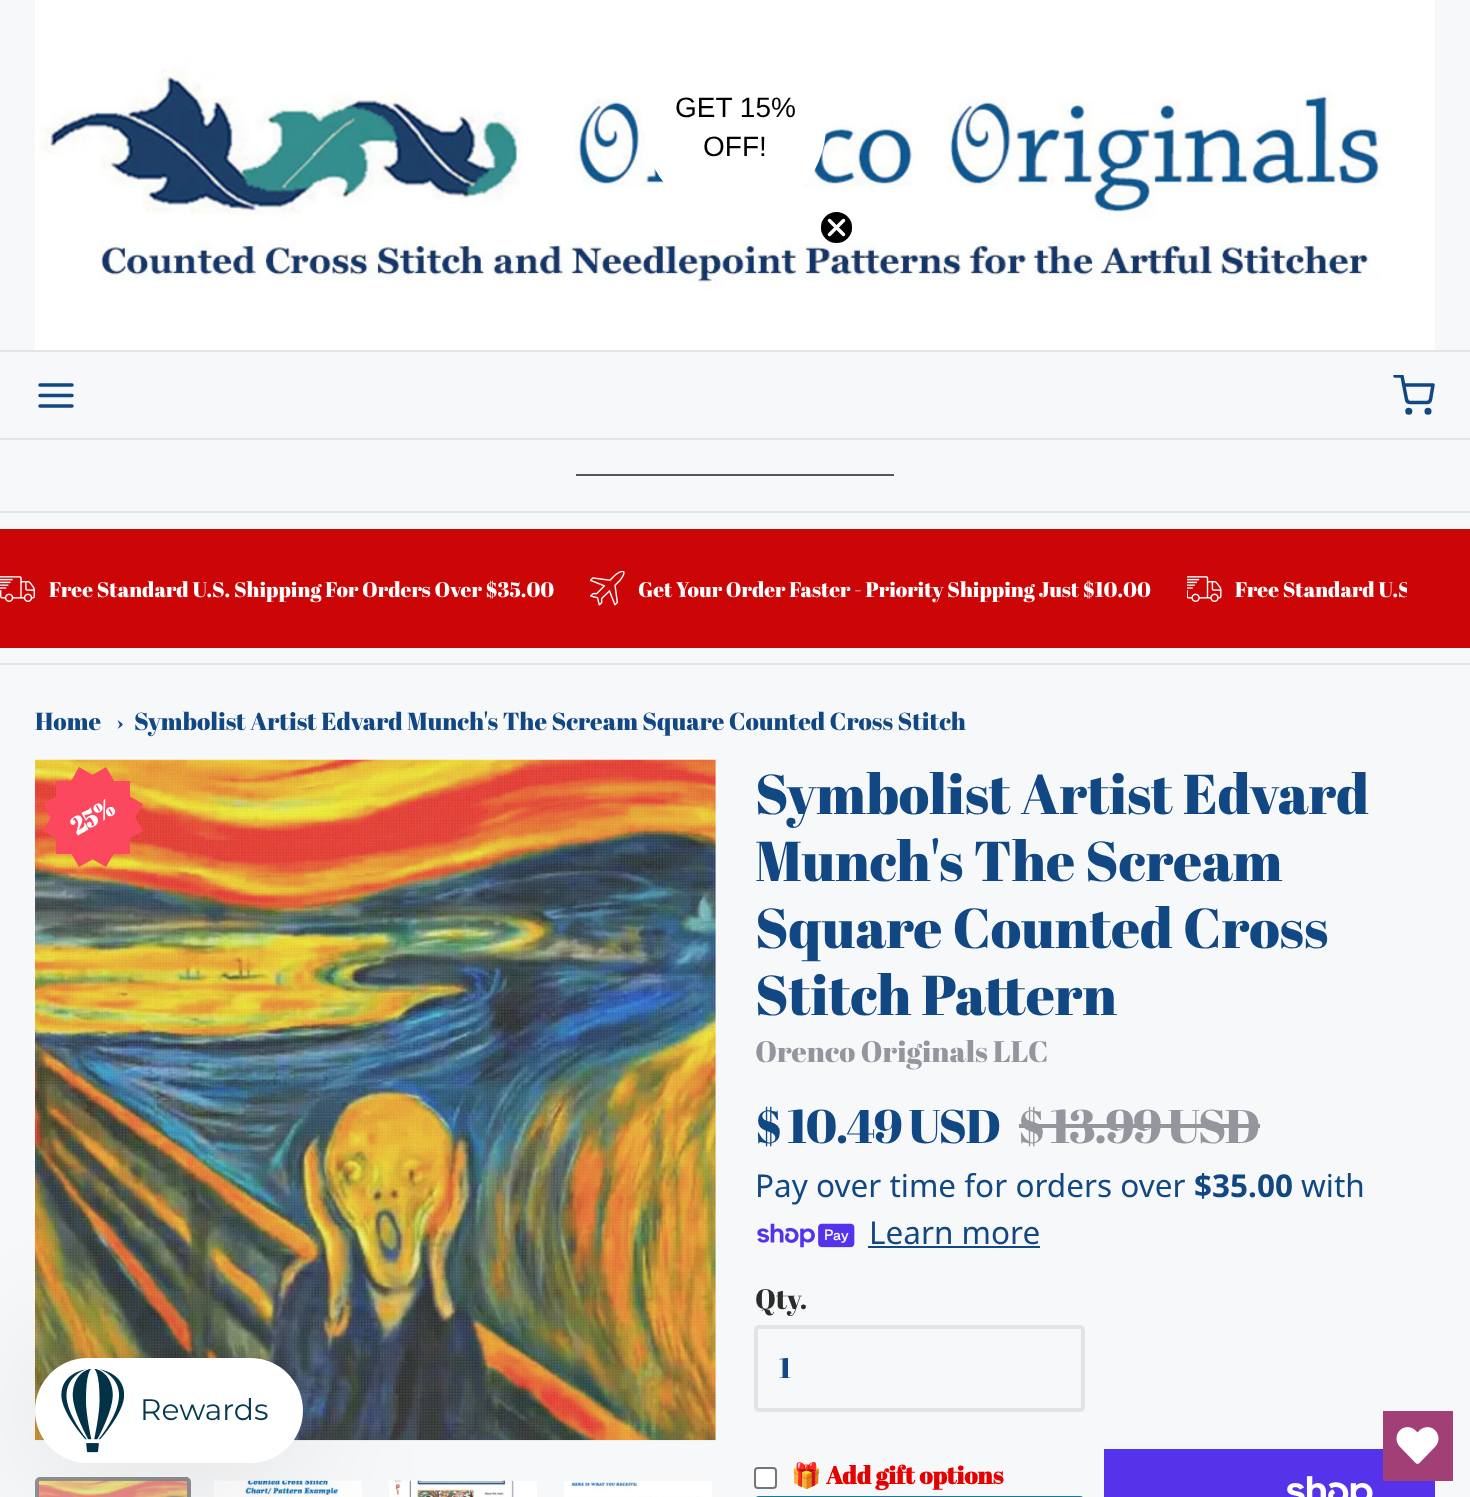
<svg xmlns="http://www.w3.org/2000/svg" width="1470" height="1497">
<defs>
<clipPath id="clip1"><rect x="1393" y="375" width="42" height="42"/></clipPath>
<clipPath id="clip2"><rect y="571" width="1407" height="35"/></clipPath>
</defs>
<rect width="100%" height="100%" fill="#f7f8f9"/>
<rect y="350" width="1470" height="2" fill="#e3e4e5"/>
<image x="35" y="0" width="1400" height="350" href="media/1.png"/>
<circle cx="735" cy="126" r="91" fill="#fff"/>
<text x="675" y="117" style="font-family:Liberation Sans;font-size:28px;fill:#000">GET 15%</text>
<text x="703" y="156" style="font-family:Liberation Sans;font-size:28px;fill:#000">OFF!</text>
<circle cx="836.5" cy="227.5" r="16.5" fill="#000" stroke="#fff" stroke-width="1.8"/>
<path d="M829.5 220.5l14 14m-14 0l14-14z" fill="none" stroke="#fff" stroke-width="3.5" stroke-linecap="round" stroke-linejoin="round"/>
<rect y="438" width="1470" height="2" fill="#e3e4e5"/>
<path d="M40 395.5h32m-32-10.5h32m-32 21h32" fill="none" stroke="#114883" stroke-width="3.5" stroke-linecap="round" stroke-linejoin="round"/>
<g clip-path="url(#clip1)">
<path d="M1395 376h7l4.5 23.5c.5 2 1.5 3 3.5 3h17c1.5 0 3-1 3.5-3l2.5-14.5h-29.5" fill="none" stroke="#114883" stroke-width="3.5" stroke-linecap="round" stroke-linejoin="round"/>
</g>
<circle cx="1408.8" cy="411.2" r="1.8" fill="none" stroke="#114883" stroke-width="3.5"/>
<circle cx="1428" cy="411.2" r="1.8" fill="none" stroke="#114883" stroke-width="3.5"/>
<rect y="511" width="1470" height="2" fill="#e3e4e5"/>
<rect x="576" y="474" width="318" height="2" fill="#565656"/>
<rect y="663" width="1470" height="2" fill="#e3e4e5"/>
<rect y="529" width="1470" height="119" fill="#cc0606"/>
<image x="0" y="576" width="35" height="26" href="media/2.png"/>
<text x="49" y="597" style="font-family:Abril Fatface;font-size:21px;fill:#fff">Free Standard U.S. Shipping For Orders Over $35.00</text>
<image x="590" y="571" width="35" height="35" href="media/3.png"/>
<text x="638" y="597" style="font-family:Abril Fatface;font-size:21px;fill:#fff">Get Your Order Faster - Priority Shipping Just $10.00</text>
<image x="1187" y="576" width="35" height="26" href="media/4.png"/>
<g clip-path="url(#clip2)">
<text x="1235" y="597" style="font-family:Abril Fatface;font-size:21px;fill:#fff">Free Standard U.S</text>
</g>
<text x="35" y="730" style="font-family:Abril Fatface;font-size:24.5px;fill:#114883">Home</text>
<text x="116" y="730" style="font-family:Abril Fatface;font-size:24.5px;fill:#114883">›</text>
<text x="134" y="730" style="font-family:Abril Fatface;font-size:24.5px;fill:#114883">Symbolist Artist Edvard Munch's The Scream Square Counted Cross Stitch</text>
<image x="35" y="759" width="681" height="682" href="media/5.png"/>
<path d="M43 804l63-37l37 64l-64 36z" fill="#fb485e"/>
<rect x="56" y="781" width="74" height="73" fill="#fb485e"/>
<path d="M43 831l36-64l64 37l-37 63z" fill="#fb485e"/>
<text x="77" y="836" transform="rotate(-30 77 836)" style="font-family:Abril Fatface;font-size:24.5px;font-weight:bold;fill:#fff">25%</text>
<rect x="37" y="1479" width="152" height="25" rx="3" fill="#f3f5f6" stroke="#8e9093" stroke-width="4"/>
<image x="38" y="1480" width="150" height="17" href="media/6.png"/>
<image x="214" y="1480" width="148" height="17" href="media/7.png"/>
<image x="389" y="1480" width="148" height="17" href="media/8.png"/>
<image x="564" y="1481" width="148" height="16" href="media/9.png"/>
<text x="755" y="814" style="font-family:Abril Fatface;font-size:56px;fill:#114883">Symbolist Artist Edvard</text>
<text x="755" y="881" style="font-family:Abril Fatface;font-size:56px;fill:#114883">Munch's The Scream</text>
<text x="755" y="948" style="font-family:Abril Fatface;font-size:56px;fill:#114883">Square Counted Cross</text>
<text x="755" y="1015" style="font-family:Abril Fatface;font-size:56px;fill:#114883">Stitch Pattern</text>
<text x="755" y="1062" style="font-family:Abril Fatface;font-size:29.5px;fill:#93979d">Orenco Originals LLC</text>
<text x="755" y="1143" style="font-family:Abril Fatface;font-size:47.25px;letter-spacing:-1.5px;fill:#114883">$ 10.49 USD</text>
<text x="1018" y="1143" style="font-family:Abril Fatface;font-size:47.25px;letter-spacing:-1.5px;fill:#93979d">$ 13.99 USD</text>
<rect x="1019" y="1124" width="241" height="4" fill="#93979d"/>
<text x="755" y="1197" style="font-family:Noto Sans;font-size:31.5px;fill:#114883">Pay over time for orders over</text>
<text x="1194" y="1197" style="font-family:Noto Sans;font-size:31.5px;font-weight:bold;fill:#114883">$35.00</text>
<text x="1301" y="1197" style="font-family:Noto Sans;font-size:31.5px;fill:#114883">with</text>
<image x="757" y="1223" width="98" height="25" href="media/10.png"/>
<text x="869" y="1244" style="font-family:Noto Sans;font-size:31.5px;fill:#114883">Learn more</text>
<rect x="868" y="1246" width="172" height="2" fill="#114883"/>
<text x="755" y="1309" style="font-family:Abril Fatface;font-size:28px;fill:#2a2b2b">Qty.</text>
<rect x="756" y="1327" width="327" height="83" rx="3" fill="none" stroke="#e1e3e4" stroke-width="4"/>
<text x="779" y="1378" style="font-family:Abril Fatface;font-size:28px;fill:#114883">1</text>
<rect x="755" y="1468" width="21" height="20" rx="3" fill="#fff" stroke="#767676" stroke-width="2"/>
<text x="791" y="1484" style="font-family:Noto Color Emoji;font-size:24.5px;font-weight:bold;fill:#e60000">🎁</text>
<text x="826" y="1484" style="font-family:Abril Fatface;font-size:24.5px;font-weight:bold;fill:#e60000">Add gift options</text>
<rect x="756" y="1498" width="327" height="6" rx="3" fill="none" stroke="#187895" stroke-width="4"/>
<rect x="1104" y="1449" width="331" height="48" fill="#5433eb"/>
<image x="1287" y="1476" width="86" height="21" href="media/11.png"/>
<rect x="35" y="1358" width="268" height="105" rx="52.5" fill="#0000001f" filter="blur(70px)"/>
<rect x="35" y="1358" width="268" height="105" rx="52.5" fill="#fff"/>
<image x="61" y="1369" width="63" height="84" href="media/12.png"/>
<text x="140" y="1420" style="font-family:Montserrat;font-size:29.75px;fill:#033950">Rewards</text>
<rect x="1383" y="1411" width="70" height="70" fill="#a33f77"/>
<image x="1396" y="1427" width="43" height="37" href="media/13.png"/>
</svg>
